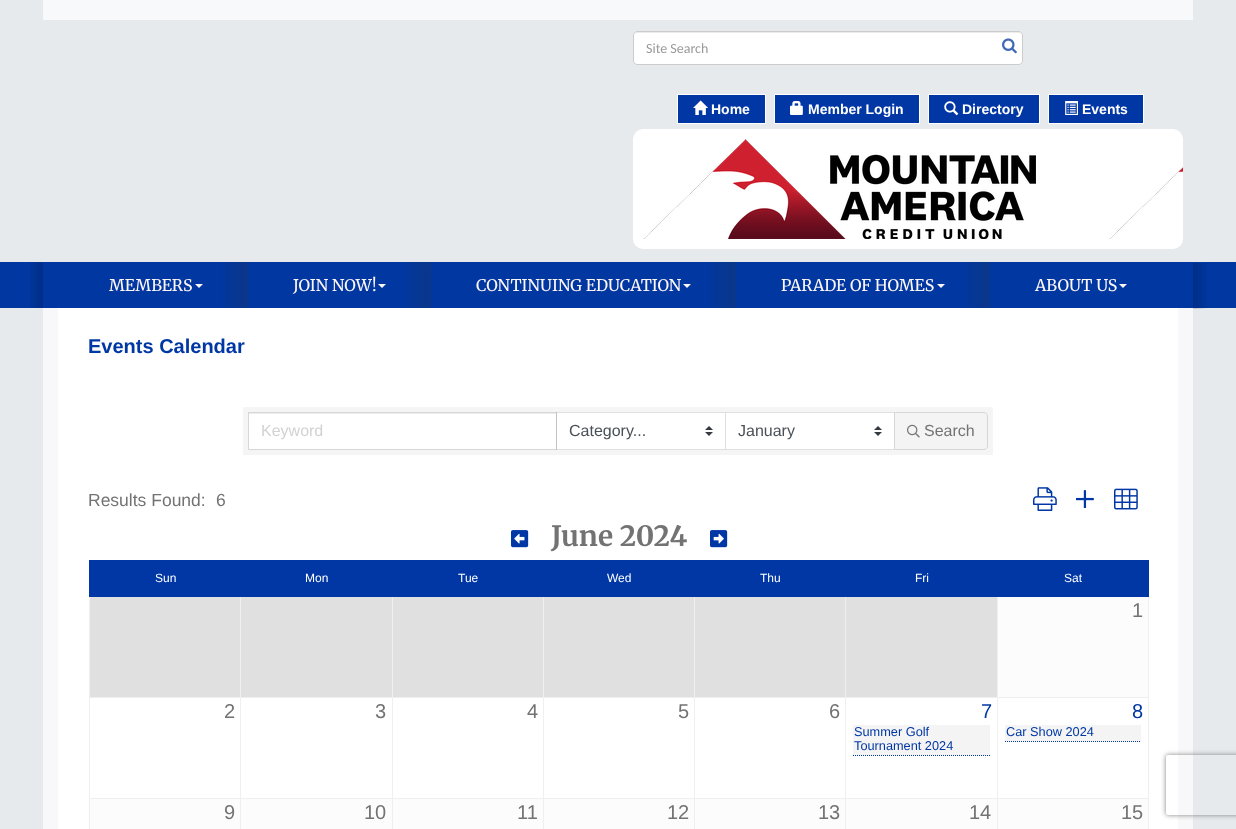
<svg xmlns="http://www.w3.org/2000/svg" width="1236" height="829">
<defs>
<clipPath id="clip1"><path d="M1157 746h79v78h-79zm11 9h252c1 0 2 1 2 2v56c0 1-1 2-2 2h-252c-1 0-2-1-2-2v-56c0-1 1-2 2-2z" clip-rule="evenodd"/></clipPath>
</defs>
<rect width="100%" height="100%" fill="#e7eaed"/>
<rect x="43" width="1150" height="20" fill="#f8f9fa"/>
<rect x="633" y="31" width="390" height="34" rx="4" fill="#fff"/>
<path d="M637 33h382c2 0 3 1 3 3c0-2-1-4-3-4h-382l-2 1l-1 3c0-2 1-3 3-3z" fill="#ececec"/>
<rect x="633.5" y="31.5" width="389" height="33" rx="3.5" fill="none" stroke="#ccc"/>
<text x="646" y="53" style="font-family:Carlito;font-size:14px;fill:#999">Site Search</text>
<image x="1002" y="38" width="15" height="16" href="media/1.png"/>
<rect x="677.5" y="94.5" width="88" height="29" fill="#0037a4" stroke="#fff"/>
<image x="693" y="100" width="15" height="15" href="media/2.png"/>
<text x="711" y="114" style="font-family:Liberation Sans;font-size:14px;font-weight:bold;fill:#fff">Home</text>
<rect x="774.5" y="94.5" width="145" height="29" fill="#0037a4" stroke="#fff"/>
<image x="790" y="101" width="13" height="14" href="media/3.png"/>
<text x="808" y="114" style="font-family:Liberation Sans;font-size:14px;font-weight:bold;fill:#fff">Member Login</text>
<rect x="928.5" y="94.5" width="111" height="29" fill="#0037a4" stroke="#fff"/>
<image x="944" y="101" width="15" height="15" href="media/4.png"/>
<text x="962" y="114" style="font-family:Liberation Sans;font-size:14px;font-weight:bold;fill:#fff">Directory</text>
<rect x="1048.5" y="94.5" width="95" height="29" fill="#0037a4" stroke="#fff"/>
<image x="1065" y="101" width="13" height="14" href="media/5.png"/>
<text x="1082" y="114" style="font-family:Liberation Sans;font-size:14px;font-weight:bold;fill:#fff">Events</text>
<rect x="633" y="129" width="550" height="120" rx="10" fill="#fff"/>
<image x="643" y="139" width="393" height="100" href="media/6.png"/>
<image x="1109" y="167" width="74" height="72" href="media/7.png"/>
<rect y="262" width="1236" height="46" fill="#0037a0"/>
<image x="30" y="262" width="13" height="46" href="media/8.png"/>
<image x="223" y="262" width="25" height="46" href="media/9.png"/>
<text x="109" y="291" style="font-family:Merriweather;font-size:16px;fill:#fdf6f6">MEMBERS</text>
<path d="M195 284h8l-4 4z" fill="#fdf6f6"/>
<image x="406" y="262" width="25" height="46" href="media/9.png"/>
<text x="293" y="291" style="font-family:Merriweather;font-size:16px;fill:#fdf6f6">JOIN NOW!</text>
<path d="M378 284h8l-4 4z" fill="#fdf6f6"/>
<image x="711" y="262" width="25" height="46" href="media/9.png"/>
<text x="476" y="291" style="font-family:Merriweather;font-size:16px;fill:#fdf6f6">CONTINUING EDUCATION</text>
<path d="M683 284h8l-4 4z" fill="#fdf6f6"/>
<image x="965" y="262" width="25" height="46" href="media/9.png"/>
<text x="781" y="291" style="font-family:Merriweather;font-size:16px;fill:#fdf6f6">PARADE OF HOMES</text>
<path d="M937 284h8l-4 4z" fill="#fdf6f6"/>
<text x="1035" y="291" style="font-family:Merriweather;font-size:16px;fill:#fdf6f6">ABOUT US</text>
<path d="M1119 284h8l-4 4z" fill="#fdf6f6"/>
<image x="1193" y="263" width="14" height="46" href="media/10.png"/>
<rect x="43" y="308" width="1150" height="521" fill="#f8f8fa"/>
<rect x="58" y="308" width="1120" height="521" fill="#fff"/>
<text x="88" y="353" style="font-family:Liberation Sans;font-size:20px;font-weight:bold;fill:#0137a5">Events Calendar</text>
<rect x="243" y="407" width="750" height="48" rx="1" fill="#f5f5f5"/>
<rect x="249" y="414" width="307" height="35" fill="#fff"/>
<rect x="249" y="413" width="307" height="1" fill="#ececec"/>
<rect x="557" y="413" width="168" height="36" fill="#fff"/>
<image x="705" y="426" width="8" height="10" href="media/11.png"/>
<rect x="556.5" y="412.5" width="169" height="37" fill="none" stroke="#dfdfdf"/>
<rect x="248.5" y="412.5" width="308" height="37" fill="none" stroke="#0000001f"/>
<text x="261" y="436" style="font-family:Liberation Sans;font-size:16px;fill:#d2d2d2">Keyword</text>
<text x="569" y="436" style="font-family:Liberation Sans;font-size:16px;fill:#495057">Category...</text>
<rect x="726" y="413" width="168" height="36" fill="#fff"/>
<image x="874" y="426" width="8" height="10" href="media/11.png"/>
<rect x="725.5" y="412.5" width="169" height="37" fill="none" stroke="#dfdfdf"/>
<text x="738" y="436" style="font-family:Liberation Sans;font-size:16px;fill:#495057">January</text>
<path d="M894.5 412.5h89.5c2 0 3.5 1.5 3.5 3.5v30c0 2-1.5 3.5-3.5 3.5h-89.5z" fill="#f4f4f4" stroke="#d6d6d6"/>
<image x="907" y="424" width="13" height="14" href="media/12.png"/>
<text x="924" y="436" style="font-family:Liberation Sans;font-size:16px;fill:#737373">Search</text>
<text x="88" y="506" style="font-family:Liberation Sans;font-size:17.5px;fill:#737373">Results Found:</text>
<text x="216" y="506" style="font-family:Liberation Sans;font-size:17.5px;fill:#737373">6</text>
<image x="1033" y="487" width="24" height="24" href="media/13.png"/>
<image x="1076" y="490" width="18" height="18" href="media/14.png"/>
<image x="1114" y="488" width="24" height="22" href="media/15.png"/>
<image x="511" y="530" width="18" height="18" href="media/16.png"/>
<text x="551" y="546" style="font-family:Merriweather;font-size:28px;font-weight:bold;fill:#737373">June 2024</text>
<image x="710" y="530" width="18" height="18" href="media/17.png"/>
<rect x="90" y="561" width="151" height="35" fill="#0137a5"/>
<rect x="89" y="560" width="152" height="1" fill="#0137a5"/>
<rect x="997" y="697" width="152" height="1" fill="#efefef"/>
<rect x="997" y="798" width="152" height="1" fill="#efefef"/>
<rect x="1148" y="798" width="1" height="31" fill="#efefef"/>
<rect x="1148" y="596" width="1" height="203" fill="#efefef"/>
<rect x="1148" y="560" width="1" height="37" fill="#0137a5"/>
<rect x="90" y="799" width="1058" height="30" fill="#fcfcfc"/>
<rect x="997" y="798" width="1" height="31" fill="#efefef"/>
<rect x="845" y="798" width="153" height="1" fill="#efefef"/>
<rect x="997" y="697" width="1" height="102" fill="#efefef"/>
<rect x="845" y="697" width="153" height="1" fill="#efefef"/>
<rect x="845" y="798" width="1" height="31" fill="#efefef"/>
<rect x="694" y="798" width="152" height="1" fill="#efefef"/>
<rect x="845" y="697" width="1" height="102" fill="#efefef"/>
<rect x="694" y="697" width="152" height="1" fill="#efefef"/>
<rect x="694" y="798" width="1" height="31" fill="#efefef"/>
<rect x="543" y="798" width="152" height="1" fill="#efefef"/>
<rect x="694" y="697" width="1" height="102" fill="#efefef"/>
<rect x="543" y="697" width="152" height="1" fill="#efefef"/>
<rect x="543" y="798" width="1" height="31" fill="#efefef"/>
<rect x="392" y="798" width="152" height="1" fill="#efefef"/>
<rect x="543" y="697" width="1" height="102" fill="#efefef"/>
<rect x="392" y="697" width="152" height="1" fill="#efefef"/>
<rect x="392" y="798" width="1" height="31" fill="#efefef"/>
<rect x="240" y="798" width="153" height="1" fill="#efefef"/>
<rect x="392" y="697" width="1" height="102" fill="#efefef"/>
<rect x="240" y="697" width="153" height="1" fill="#efefef"/>
<rect x="240" y="798" width="1" height="31" fill="#efefef"/>
<rect x="89" y="798" width="152" height="1" fill="#efefef"/>
<rect x="240" y="697" width="1" height="102" fill="#efefef"/>
<rect x="89" y="697" width="152" height="1" fill="#efefef"/>
<rect x="240" y="596" width="1" height="102" fill="#efefef"/>
<rect x="392" y="596" width="1" height="102" fill="#efefef"/>
<rect x="543" y="596" width="1" height="102" fill="#efefef"/>
<rect x="694" y="596" width="1" height="102" fill="#efefef"/>
<rect x="845" y="596" width="1" height="102" fill="#efefef"/>
<rect x="997" y="596" width="1" height="102" fill="#efefef"/>
<rect x="89" y="798" width="1" height="31" fill="#efefef"/>
<rect x="89" y="596" width="1" height="203" fill="#efefef"/>
<rect x="89" y="596" width="1060" height="1" fill="#0137a5"/>
<rect x="89" y="560" width="1" height="37" fill="#0137a5"/>
<text x="155" y="582" style="font-family:Liberation Sans;font-size:12px;fill:#fff">Sun</text>
<rect x="241" y="560" width="907" height="36" fill="#0137a5"/>
<text x="305" y="582" style="font-family:Liberation Sans;font-size:12px;fill:#fff">Mon</text>
<text x="458" y="582" style="font-family:Liberation Sans;font-size:12px;fill:#fff">Tue</text>
<text x="607" y="582" style="font-family:Liberation Sans;font-size:12px;fill:#fff">Wed</text>
<text x="760" y="582" style="font-family:Liberation Sans;font-size:12px;fill:#fff">Thu</text>
<text x="915" y="582" style="font-family:Liberation Sans;font-size:12px;fill:#fff">Fri</text>
<text x="1064" y="582" style="font-family:Liberation Sans;font-size:12px;fill:#fff">Sat</text>
<rect x="998" y="597" width="150" height="100" fill="#fcfcfc"/>
<rect x="90" y="597" width="150" height="100" fill="#e0e0e0"/>
<rect x="241" y="597" width="151" height="100" fill="#e0e0e0"/>
<rect x="393" y="597" width="150" height="100" fill="#e0e0e0"/>
<rect x="544" y="597" width="150" height="100" fill="#e0e0e0"/>
<rect x="695" y="597" width="150" height="100" fill="#e0e0e0"/>
<rect x="846" y="597" width="151" height="100" fill="#e0e0e0"/>
<text x="1132" y="617" style="font-family:Liberation Sans;font-size:20px;fill:#737373">1</text>
<text x="224" y="718" style="font-family:Liberation Sans;font-size:20px;fill:#737373">2</text>
<text x="375" y="718" style="font-family:Liberation Sans;font-size:20px;fill:#737373">3</text>
<text x="527" y="718" style="font-family:Liberation Sans;font-size:20px;fill:#737373">4</text>
<text x="678" y="718" style="font-family:Liberation Sans;font-size:20px;fill:#737373">5</text>
<text x="829" y="718" style="font-family:Liberation Sans;font-size:20px;fill:#737373">6</text>
<text x="981" y="718" style="font-family:Liberation Sans;font-size:20px;fill:#0137a5">7</text>
<rect x="853" y="725" width="137" height="31" fill="#f4f4f4"/>
<path d="M853 755.5h137" fill="none" stroke="#0137a5" stroke-dasharray="1 1"/>
<text x="854" y="736" style="font-family:Liberation Sans;font-size:12.75px;fill:#0137a5">Summer Golf</text>
<text x="854" y="750" style="font-family:Liberation Sans;font-size:12.75px;fill:#0137a5">Tournament 2024</text>
<text x="1132" y="718" style="font-family:Liberation Sans;font-size:20px;fill:#0137a5">8</text>
<rect x="1005" y="725" width="136" height="17" fill="#f4f4f4"/>
<path d="M1005 741.5h136" fill="none" stroke="#0137a5" stroke-dasharray="1 1"/>
<text x="1006" y="736" style="font-family:Liberation Sans;font-size:12.75px;fill:#0137a5">Car Show 2024</text>
<text x="224" y="819" style="font-family:Liberation Sans;font-size:20px;fill:#737373">9</text>
<text x="364" y="819" style="font-family:Liberation Sans;font-size:20px;fill:#737373">10</text>
<text x="517" y="819" style="font-family:Liberation Sans;font-size:20px;fill:#737373">11</text>
<text x="667" y="819" style="font-family:Liberation Sans;font-size:20px;fill:#737373">12</text>
<text x="818" y="819" style="font-family:Liberation Sans;font-size:20px;fill:#737373">13</text>
<text x="969" y="819" style="font-family:Liberation Sans;font-size:20px;fill:#737373">14</text>
<text x="1121" y="819" style="font-family:Liberation Sans;font-size:20px;fill:#737373">15</text>
<g clip-path="url(#clip1)">
<rect x="1166" y="755" width="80" height="60" rx="2" fill="#808080" filter="blur(2.5px)"/>
</g>
</svg>
